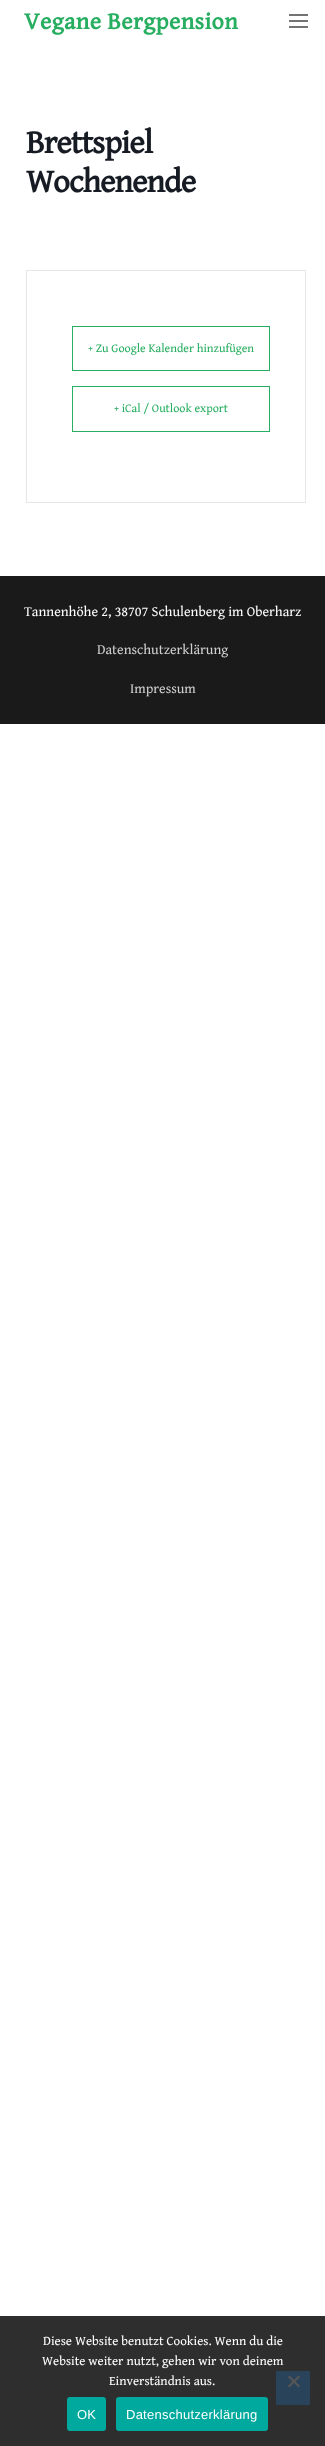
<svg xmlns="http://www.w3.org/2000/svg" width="325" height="2446">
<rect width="100%" height="100%" fill="#fff"/>
<text x="24" y="29" style="font-family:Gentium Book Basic;font-size:24px;font-weight:bold;letter-spacing:0.4px;fill:#27ae60">Vegane Bergpension</text>
<rect x="289" y="20" width="19" height="2" fill="#737373"/>
<rect x="289" y="14" width="19" height="2" fill="#737373"/>
<rect x="289" y="26" width="19" height="2" fill="#737373"/>
<text x="26" y="153" style="font-family:Gentium Book Basic;font-size:33px;font-weight:bold;letter-spacing:-1px;fill:#171c24">Brettspiel</text>
<text x="26" y="192" style="font-family:Gentium Book Basic;font-size:33px;font-weight:bold;letter-spacing:-1px;fill:#171c24">Wochenende</text>
<rect x="26.5" y="270.5" width="279" height="232" fill="none" stroke="#e6e7e8"/>
<rect x="72.5" y="326.5" width="197" height="44" fill="none" stroke="#27ae60"/>
<text x="88" y="352" style="font-family:Gentium Book Basic;font-size:12px;fill:#27ae60">+ Zu Google Kalender hinzufügen</text>
<rect x="72.5" y="386.5" width="197" height="45" fill="none" stroke="#27ae60"/>
<text x="114" y="412" style="font-family:Gentium Book Basic;font-size:12px;fill:#27ae60">+ iCal / Outlook export</text>
<rect y="576" width="325" height="148" fill="#1a1a1a"/>
<text x="24" y="616" style="font-family:Gentium Book Basic;font-size:14px;fill:#fdfdfd">Tannenhöhe 2, 38707 Schulenberg im Oberharz</text>
<text x="97" y="654" style="font-family:Gentium Book Basic;font-size:14px;fill:#cfcfcf">Datenschutzerklärung</text>
<text x="130" y="693" style="font-family:Gentium Book Basic;font-size:14px;fill:#cfcfcf">Impressum</text>
<rect y="2316" width="325" height="130" fill="#2e2e2e"/>
<text x="43" y="2345" style="font-family:Gentium Book Basic;font-size:13px;fill:#fdfdfd">Diese Website benutzt Cookies. Wenn du die</text>
<text x="42" y="2365" style="font-family:Gentium Book Basic;font-size:13px;fill:#fdfdfd">Website weiter nutzt, gehen wir von deinem</text>
<text x="109" y="2385" style="font-family:Gentium Book Basic;font-size:13px;fill:#fdfdfd">Einverständnis aus.</text>
<rect x="276" y="2371" width="34" height="34" rx="1" fill="#29435b"/>
<path d="M298.5 2375.5l1.5 1.5l-10.5 10.5l-1.5-1.5z" fill="#575757"/>
<path d="M288 2377l1.5-1.5l10.5 10.5l-1.5 1.5z" fill="#575757"/>
<rect x="67" y="2397" width="39" height="34" rx="3" fill="#00a99d"/>
<text x="77" y="2419" style="font-family:Liberation Sans;font-size:13px;letter-spacing:0.25px;fill:#fdfdfd">OK</text>
<rect x="116" y="2397" width="152" height="34" rx="3" fill="#00a99d"/>
<text x="126" y="2419" style="font-family:Liberation Sans;font-size:13px;letter-spacing:0.25px;fill:#fdfdfd">Datenschutzerklärung</text>
</svg>
